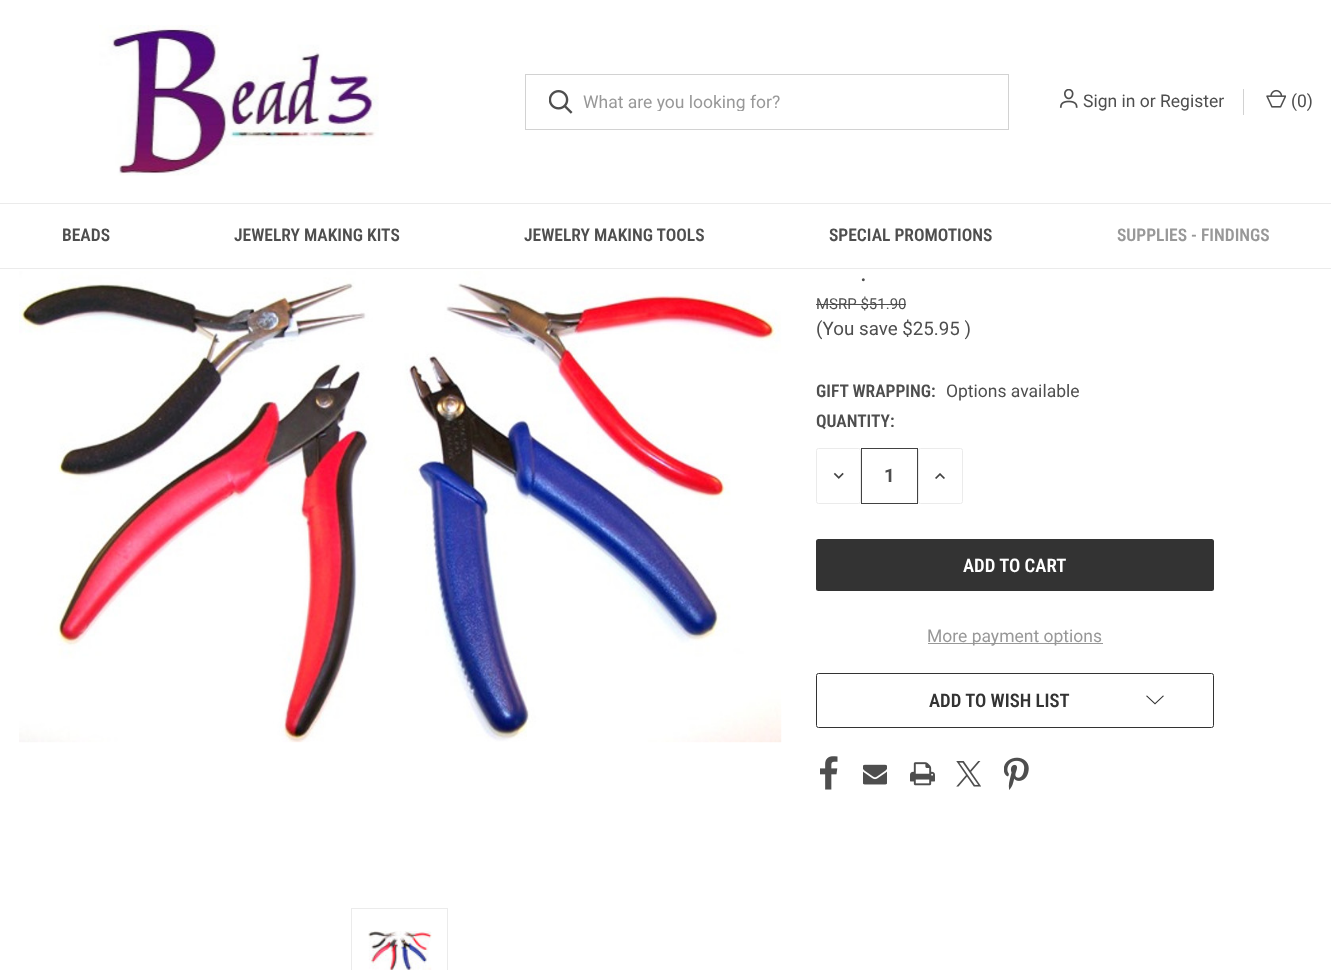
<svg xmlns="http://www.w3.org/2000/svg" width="1331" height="970">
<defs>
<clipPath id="clip1"><rect x="583" y="91" width="407" height="20"/></clipPath>
</defs>
<rect width="100%" height="100%" fill="#fff"/>
<image x="99" y="25" width="280" height="151" href="media/1.png"/>
<rect x="525.5" y="74.5" width="483" height="55" fill="none" stroke="#d2d2d2"/>
<image x="549" y="90" width="24" height="24" href="media/2.png"/>
<g clip-path="url(#clip1)">
<text x="583" y="108" style="font-family:Roboto;font-size:17.5px;fill:#989898">What are you looking for?</text>
</g>
<image x="1059" y="89" width="19" height="19" href="media/3.png"/>
<text x="1083" y="107" style="font-family:Roboto;font-size:17.5px;fill:#4e4e4e">Sign in or Register</text>
<rect x="1243" y="89" width="1" height="26" fill="#d2d2d2"/>
<image x="1266" y="89" width="20" height="19" href="media/4.png"/>
<text x="1291" y="107" style="font-family:Roboto;font-size:17.5px;fill:#4e4e4e">(0)</text>
<rect y="203" width="1331" height="1" fill="#ebebeb"/>
<rect y="268" width="1331" height="1" fill="#ebebeb"/>
<text x="62" y="241" style="font-family:Roboto Condensed;font-size:17.5px;font-weight:600;fill:#4e4e4e">BEADS</text>
<text x="234" y="241" style="font-family:Roboto Condensed;font-size:17.5px;font-weight:600;fill:#4e4e4e">JEWELRY MAKING KITS</text>
<text x="524" y="241" style="font-family:Roboto Condensed;font-size:17.5px;font-weight:600;fill:#4e4e4e">JEWELRY MAKING TOOLS</text>
<text x="829" y="241" style="font-family:Roboto Condensed;font-size:17.5px;font-weight:600;fill:#4e4e4e">SPECIAL PROMOTIONS</text>
<text x="1117" y="241" style="font-family:Roboto Condensed;font-size:17.5px;font-weight:600;fill:#989898">SUPPLIES - FINDINGS</text>
<image x="19" y="271" width="763" height="472" href="media/5.png"/>
<rect x="351.5" y="908.5" width="96" height="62" fill="none" stroke="#ebebeb"/>
<image x="368" y="931" width="64" height="39" href="media/6.png"/>
<text x="860" y="281" style="font-family:Roboto;font-size:26px;fill:#4e4e4e">.</text>
<text x="816" y="309" style="font-family:Roboto;font-size:15px;fill:#4e4e4e">MSRP $51.90</text>
<rect x="816" y="304" width="90" height="1" fill="#4e4e4e"/>
<text x="816" y="335" style="font-family:Roboto;font-size:18.75px;fill:#4e4e4e">(You save $25.95 )</text>
<text x="816" y="397" style="font-family:Roboto Condensed;font-size:17.5px;font-weight:600;fill:#4e4e4e">GIFT WRAPPING:</text>
<text x="946" y="397" style="font-family:Roboto;font-size:17.5px;fill:#4e4e4e">Options available</text>
<text x="816" y="427" style="font-family:Roboto Condensed;font-size:17.5px;font-weight:600;fill:#4e4e4e">QUANTITY:</text>
<rect x="816.5" y="448.5" width="44" height="55" rx="2" fill="none" stroke="#ebebeb"/>
<image x="833" y="472" width="11" height="7" href="media/7.png"/>
<rect x="861.5" y="448.5" width="56" height="55" fill="none" stroke="#424242"/>
<text x="884" y="482" style="font-family:Roboto;font-size:18.75px;font-weight:bold;fill:#4e4e4e">1</text>
<rect x="918.5" y="448.5" width="44" height="55" rx="2" fill="none" stroke="#ebebeb"/>
<image x="935" y="473" width="10" height="6" href="media/8.png"/>
<rect x="816" y="539" width="398" height="52" rx="2.5" fill="#333"/>
<text x="963" y="572" style="font-family:Roboto Condensed;font-size:18.75px;font-weight:600;fill:#fff">ADD TO CART</text>
<rect x="928" y="643" width="175" height="1" fill="#989898"/>
<text x="927" y="642" style="font-family:Roboto;font-size:17.5px;fill:#989898">More payment options</text>
<rect x="816.5" y="673.5" width="397" height="54" rx="2" fill="none" stroke="#333"/>
<text x="929" y="707" style="font-family:Roboto Condensed;font-size:18.75px;font-weight:600;fill:#333">ADD TO WISH LIST</text>
<path d="M1155 703l8-7.5l1 .5l-9 8.5l-9-8.5l1-.5z" fill="#333" fill-rule="evenodd"/>
<image x="820" y="756" width="18" height="34" href="media/9.png"/>
<image x="863" y="764" width="24" height="21" href="media/10.png"/>
<image x="910" y="762" width="25" height="24" href="media/11.png"/>
<image x="956" y="761" width="25" height="26" href="media/12.png"/>
<image x="1004" y="757" width="25" height="33" href="media/13.png"/>
</svg>
